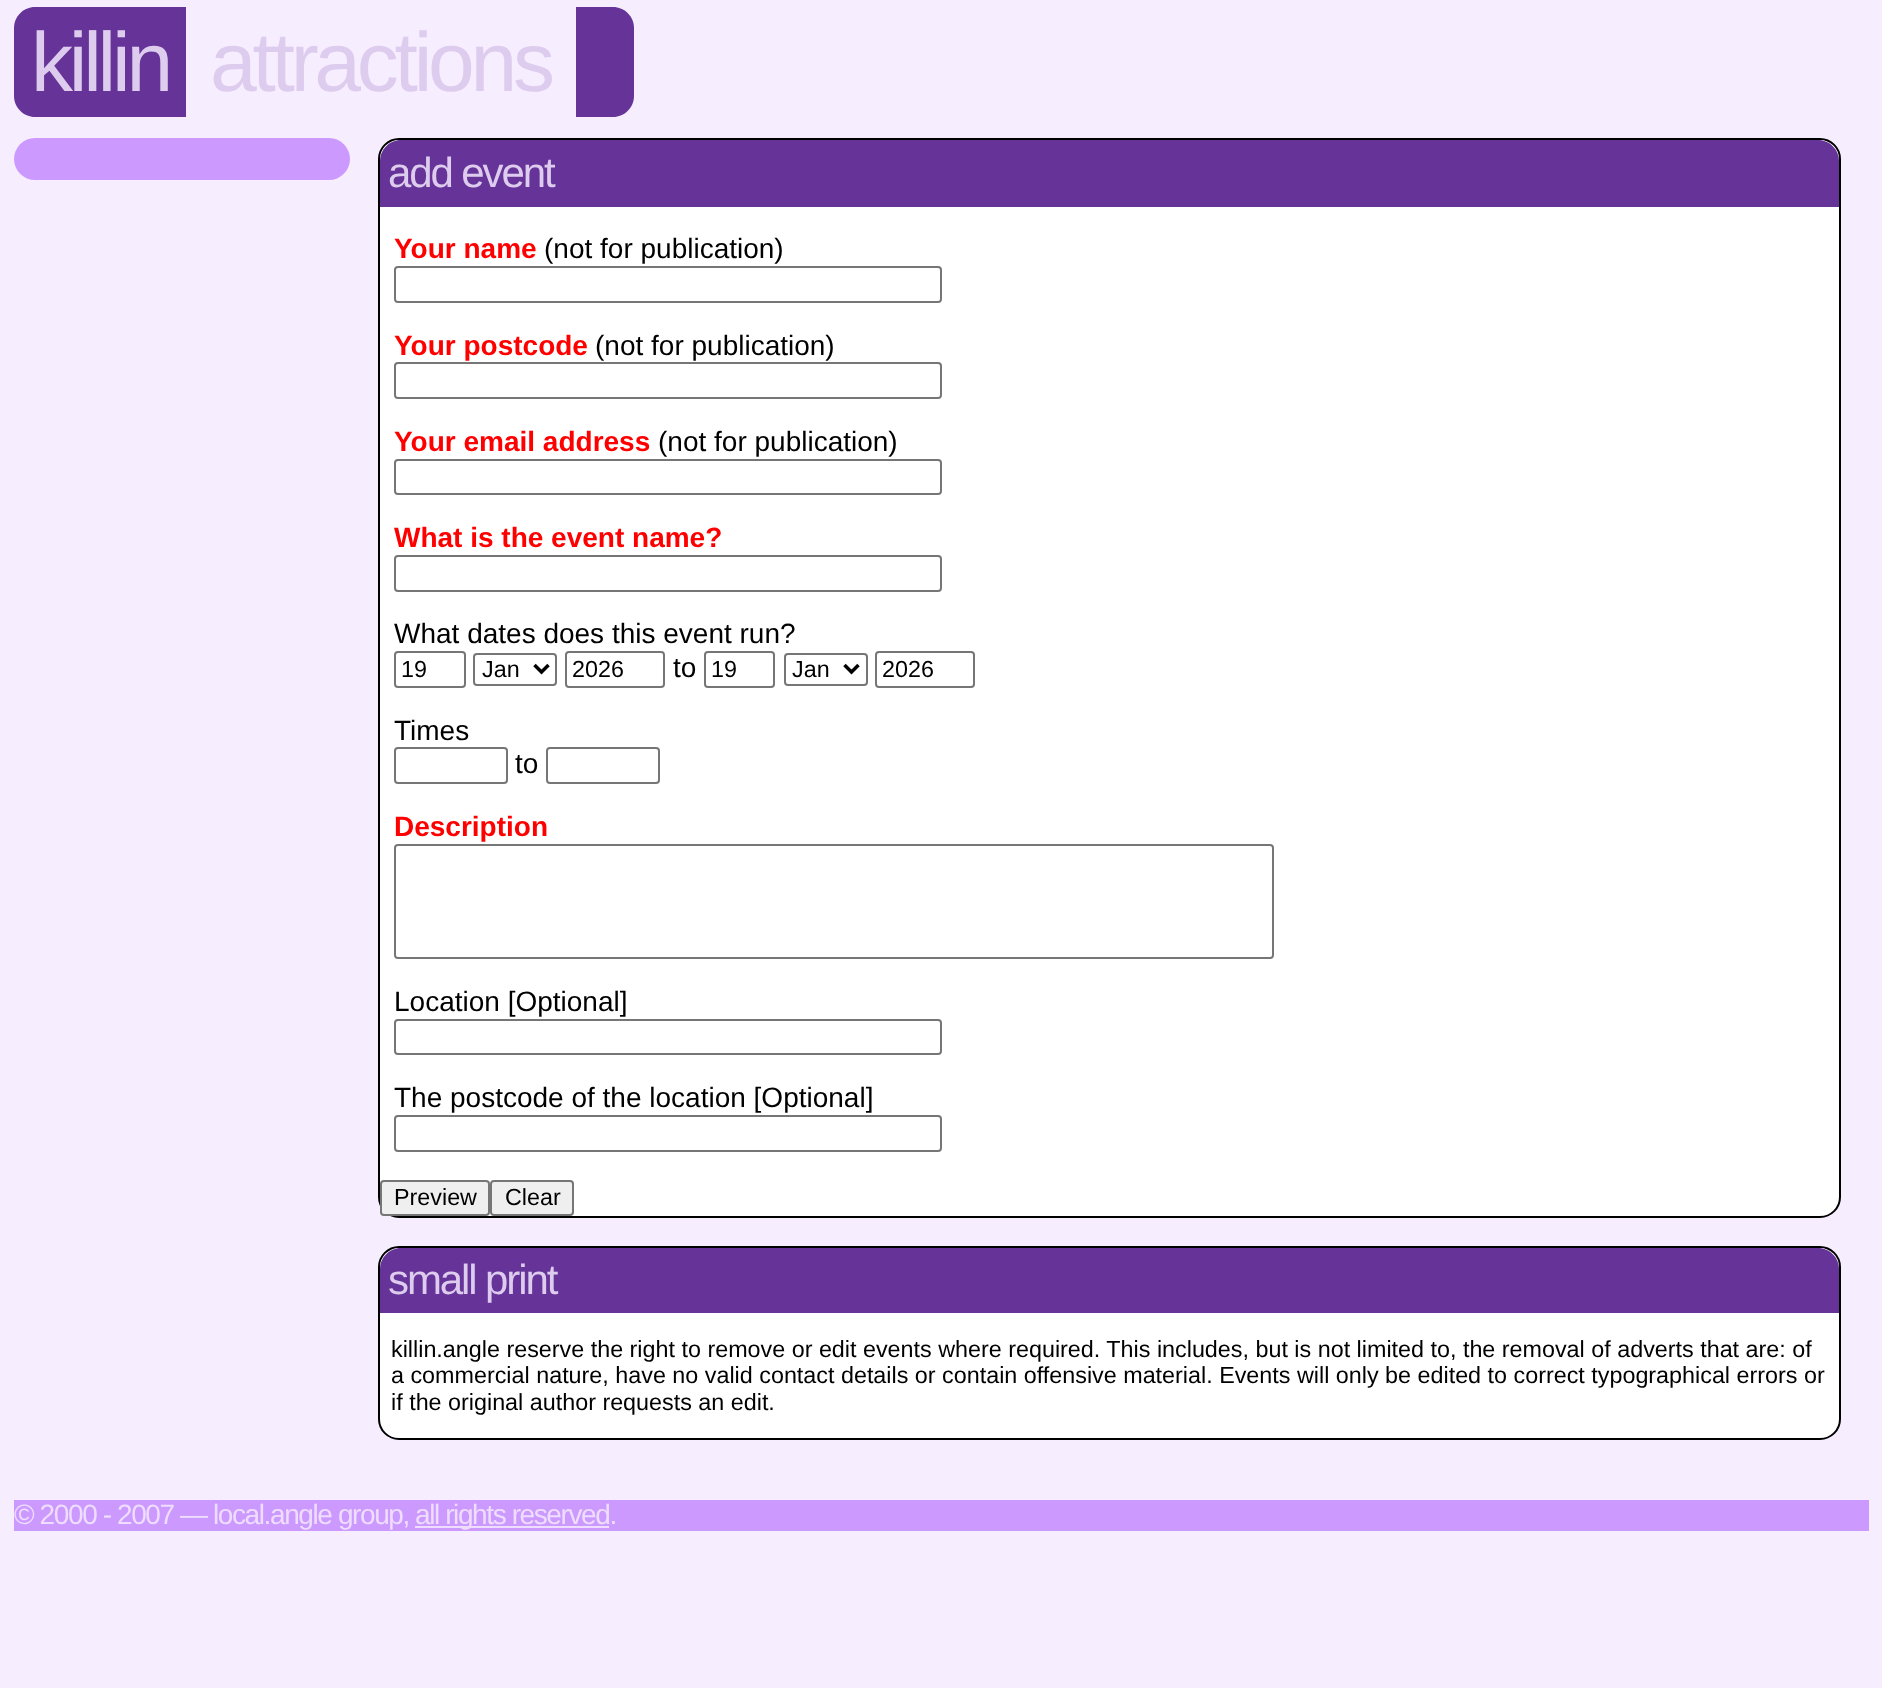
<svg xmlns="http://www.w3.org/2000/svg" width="1882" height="1688">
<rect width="100%" height="100%" fill="#f6eeff"/>
<path d="M35 7h151v110h-151c-11.5 0-21-9.5-21-21v-68c0-11.5 9.5-21 21-21z" fill="#639"/>
<text x="31" y="91" style="font-family:Liberation Sans;font-size:84px;letter-spacing:-4.25px;fill:#dce">killin</text>
<text x="210" y="91" style="font-family:Liberation Sans;font-size:84px;letter-spacing:-4.25px;fill:#dce">attractions</text>
<path d="M576 7h37c11.5 0 21 9.5 21 21v68c0 11.5-9.5 21-21 21h-37z" fill="#639"/>
<rect x="14" y="138" width="336" height="42" rx="21" fill="#c9f"/>
<rect x="379" y="139" width="1461" height="1078" rx="20" fill="#fff" stroke="#000" stroke-width="2"/>
<path d="M401 140h1417c11.5 0 21 9.5 21 21v46h-1459v-46c0-11.5 9.5-21 21-21z" fill="#639"/>
<text x="388" y="187" style="font-family:Liberation Sans;font-size:42px;letter-spacing:-2.1px;fill:#dce">add event</text>
<text x="394" y="258" style="font-family:Liberation Sans;font-size:28px;font-weight:bold;fill:#f00">Your name</text>
<text x="544" y="258" style="font-family:Liberation Sans;font-size:28px;fill:#000">(not for publication)</text>
<rect x="395" y="267" width="546" height="35" rx="3" fill="none" stroke="#767676" stroke-width="2"/>
<text x="394" y="355" style="font-family:Liberation Sans;font-size:28px;font-weight:bold;fill:#f00">Your postcode</text>
<text x="595" y="355" style="font-family:Liberation Sans;font-size:28px;fill:#000">(not for publication)</text>
<rect x="395" y="363" width="546" height="35" rx="3" fill="none" stroke="#767676" stroke-width="2"/>
<text x="394" y="451" style="font-family:Liberation Sans;font-size:28px;font-weight:bold;fill:#f00">Your email address</text>
<text x="658" y="451" style="font-family:Liberation Sans;font-size:28px;fill:#000">(not for publication)</text>
<rect x="395" y="460" width="546" height="34" rx="3" fill="none" stroke="#767676" stroke-width="2"/>
<text x="394" y="547" style="font-family:Liberation Sans;font-size:28px;font-weight:bold;fill:#f00">What is the event name?</text>
<rect x="395" y="556" width="546" height="35" rx="3" fill="none" stroke="#767676" stroke-width="2"/>
<text x="394" y="643" style="font-family:Liberation Sans;font-size:28px;fill:#000">What dates does this event run?</text>
<rect x="395" y="652" width="70" height="35" rx="3" fill="none" stroke="#767676" stroke-width="2"/>
<text x="401" y="677" style="font-family:Liberation Sans;font-size:23.33px;fill:#000">19</text>
<rect x="474" y="654" width="82" height="31" rx="3" fill="none" stroke="#767676" stroke-width="2"/>
<path d="M534.5 665l7 7l7-7" fill="none" stroke="#000" stroke-width="3.5"/>
<text x="482" y="677" style="font-family:Liberation Sans;font-size:23.33px;fill:#000">Jan</text>
<rect x="566" y="652" width="98" height="35" rx="3" fill="none" stroke="#767676" stroke-width="2"/>
<text x="572" y="677" style="font-family:Liberation Sans;font-size:23.33px;fill:#000">2026</text>
<text x="673" y="677" style="font-family:Liberation Sans;font-size:28px;fill:#000">to</text>
<rect x="705" y="652" width="69" height="35" rx="3" fill="none" stroke="#767676" stroke-width="2"/>
<text x="711" y="677" style="font-family:Liberation Sans;font-size:23.33px;fill:#000">19</text>
<rect x="785" y="654" width="82" height="31" rx="3" fill="none" stroke="#767676" stroke-width="2"/>
<path d="M844.5 665l7 7l7-7" fill="none" stroke="#000" stroke-width="3.5"/>
<text x="792" y="677" style="font-family:Liberation Sans;font-size:23.33px;fill:#000">Jan</text>
<rect x="876" y="652" width="98" height="35" rx="3" fill="none" stroke="#767676" stroke-width="2"/>
<text x="882" y="677" style="font-family:Liberation Sans;font-size:23.33px;fill:#000">2026</text>
<text x="394" y="740" style="font-family:Liberation Sans;font-size:28px;fill:#000">Times</text>
<rect x="395" y="748" width="112" height="35" rx="3" fill="none" stroke="#767676" stroke-width="2"/>
<text x="515" y="773" style="font-family:Liberation Sans;font-size:28px;fill:#000">to</text>
<rect x="547" y="748" width="112" height="35" rx="3" fill="none" stroke="#767676" stroke-width="2"/>
<text x="394" y="836" style="font-family:Liberation Sans;font-size:28px;font-weight:bold;fill:#f00">Description</text>
<rect x="395" y="845" width="878" height="113" rx="3" fill="none" stroke="#767676" stroke-width="2"/>
<text x="394" y="1011" style="font-family:Liberation Sans;font-size:28px;fill:#000">Location [Optional]</text>
<rect x="395" y="1020" width="546" height="34" rx="3" fill="none" stroke="#767676" stroke-width="2"/>
<text x="394" y="1107" style="font-family:Liberation Sans;font-size:28px;fill:#000">The postcode of the location [Optional]</text>
<rect x="395" y="1116" width="546" height="35" rx="3" fill="none" stroke="#767676" stroke-width="2"/>
<rect x="381" y="1181" width="108" height="34" rx="3" fill="#efefef" stroke="#767676" stroke-width="2"/>
<text x="394" y="1205" style="font-family:Liberation Sans;font-size:23.33px;fill:#000">Preview</text>
<rect x="491" y="1181" width="82" height="34" rx="3" fill="#efefef" stroke="#767676" stroke-width="2"/>
<text x="505" y="1205" style="font-family:Liberation Sans;font-size:23.33px;fill:#000">Clear</text>
<rect x="379" y="1247" width="1461" height="192" rx="20" fill="#fff" stroke="#000" stroke-width="2"/>
<path d="M401 1248h1417c11.5 0 21 9.5 21 21v44h-1459v-44c0-11.5 9.5-21 21-21z" fill="#639"/>
<text x="388" y="1294" style="font-family:Liberation Sans;font-size:42px;letter-spacing:-2.1px;fill:#dce">small print</text>
<text x="391" y="1357" style="font-family:Liberation Sans;font-size:23.33px;fill:#000">killin.angle reserve the right to remove or edit events where required. This includes, but is not limited to, the removal of adverts that are: of</text>
<text x="391" y="1383" style="font-family:Liberation Sans;font-size:23.33px;fill:#000">a commercial nature, have no valid contact details or contain offensive material. Events will only be edited to correct typographical errors or</text>
<text x="391" y="1410" style="font-family:Liberation Sans;font-size:23.33px;fill:#000">if the original author requests an edit.</text>
<rect x="14" y="1500" width="1855" height="31" fill="#c9f"/>
<text x="14" y="1524" style="font-family:Liberation Sans;font-size:28px;letter-spacing:-1.4px;fill:#edf">© 2000 - 2007 — local.angle group,</text>
<rect x="415" y="1526" width="194" height="2" fill="#edf"/>
<text x="415" y="1524" style="font-family:Liberation Sans;font-size:28px;letter-spacing:-1.4px;fill:#edf">all rights reserved.</text>
</svg>
